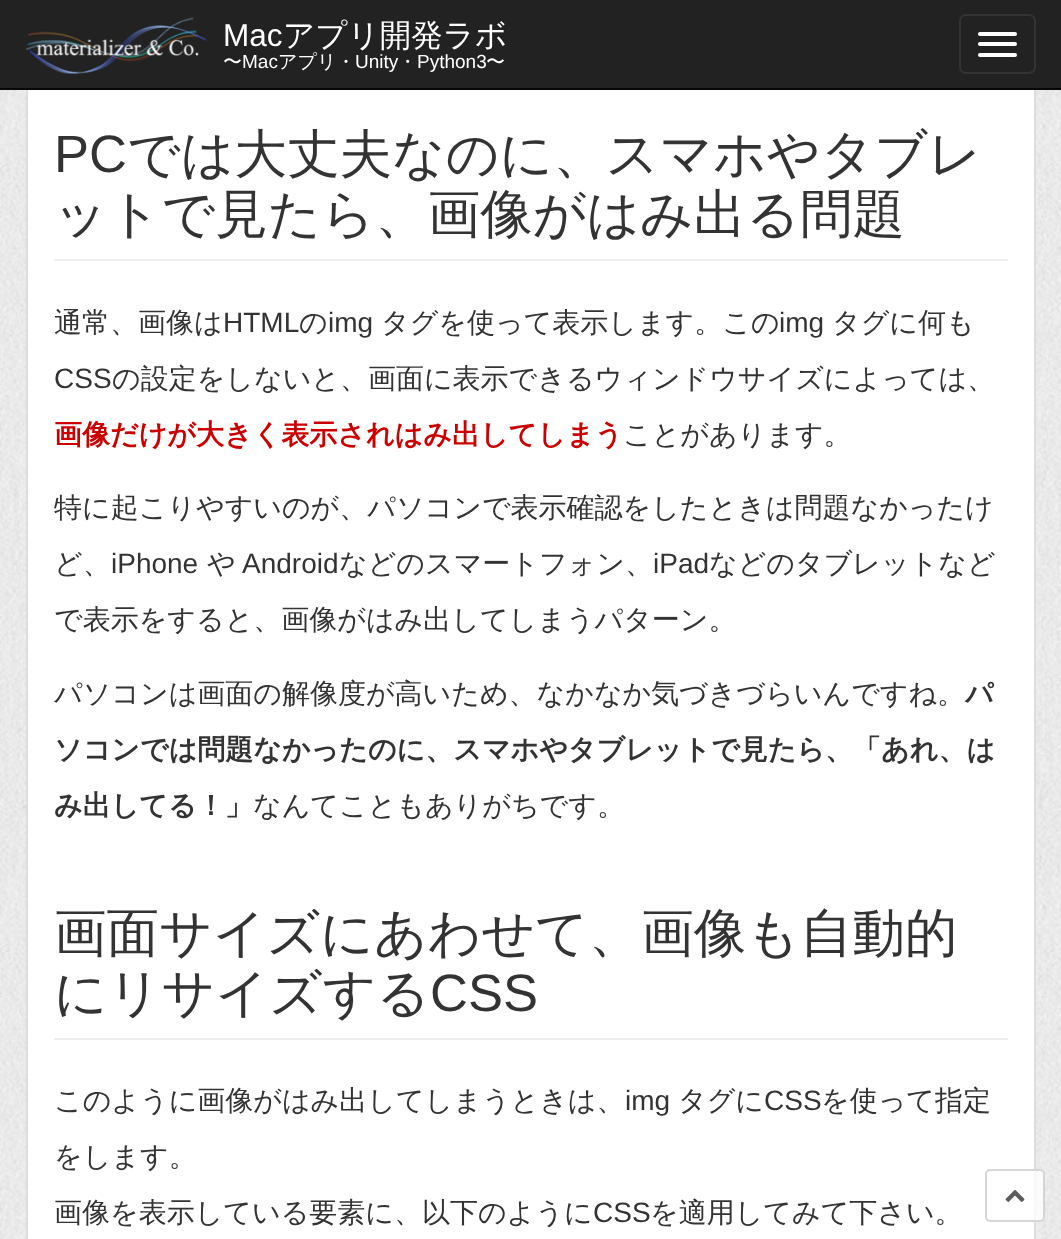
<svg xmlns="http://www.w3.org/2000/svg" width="1061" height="1239">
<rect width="100%" height="100%" fill="#fff"/>
<image x="0" y="90" width="1061" height="1149" href="media/1.png"/>
<rect x="28" y="90" width="1006" height="1149" fill="#fff"/>
<rect x="27" y="-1" width="1008" height="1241" fill="none" stroke="#ddd" stroke-width="2"/>
<rect width="1061" height="88" fill="#222"/>
<rect y="88" width="1061" height="2" fill="#080808"/>
<image x="26" y="17" width="181" height="57" href="media/2.png"/>
<text x="223" y="46" style="font-family:Liberation Sans;font-size:31.5px;fill:#fff">Mac</text>
<text x="283" y="46" style="font-family:WenQuanYi Zen Hei;font-size:31.5px;font-weight:500;fill:#fff">アプリ開発ラボ</text>
<text x="223" y="68" style="font-family:WenQuanYi Zen Hei;font-size:19px;font-weight:500;fill:#fff">〜</text>
<text x="242" y="68" style="font-family:Liberation Sans;font-size:19px;fill:#fff">Mac</text>
<text x="278" y="68" style="font-family:WenQuanYi Zen Hei;font-size:19px;font-weight:500;fill:#fff">アプリ・</text>
<text x="355" y="68" style="font-family:Liberation Sans;font-size:19px;fill:#fff">Unity</text>
<text x="398" y="68" style="font-family:WenQuanYi Zen Hei;font-size:19px;font-weight:500;fill:#fff">・</text>
<text x="417" y="68" style="font-family:Liberation Sans;font-size:19px;fill:#fff">Python3</text>
<text x="486" y="68" style="font-family:WenQuanYi Zen Hei;font-size:19px;font-weight:500;fill:#fff">〜</text>
<rect x="960" y="15" width="75" height="58" rx="6" fill="none" stroke="#333" stroke-width="2"/>
<rect x="978" y="32" width="39" height="4" rx="2" fill="#fff"/>
<rect x="978" y="42" width="39" height="4" rx="2" fill="#fff"/>
<rect x="978" y="53" width="39" height="4" rx="2" fill="#fff"/>
<rect x="54" y="259" width="954" height="2" fill="#eee"/>
<text x="54" y="172" style="font-family:Liberation Sans;font-size:52.5px;fill:#333">PC</text>
<text x="127" y="172" style="font-family:WenQuanYi Zen Hei;font-size:52.5px;font-weight:500;fill:#333">では大丈夫なのに、スマホやタブレ</text>
<text x="54" y="232" style="font-family:WenQuanYi Zen Hei;font-size:52.5px;font-weight:500;fill:#333">ットで見たら、画像がはみ出る問題</text>
<text x="54" y="332" style="font-family:WenQuanYi Zen Hei;font-size:28px;font-weight:500;fill:#333">通常、画像は</text>
<text x="223" y="332" style="font-family:Liberation Sans;font-size:28px;fill:#333">HTML</text>
<text x="299" y="332" style="font-family:WenQuanYi Zen Hei;font-size:28px;font-weight:500;fill:#333">の</text>
<text x="328" y="332" style="font-family:Liberation Sans;font-size:28px;fill:#333">img</text>
<text x="381" y="332" style="font-family:WenQuanYi Zen Hei;font-size:28px;font-weight:500;fill:#333">タグを使って表示します。この</text>
<text x="779" y="332" style="font-family:Liberation Sans;font-size:28px;fill:#333">img</text>
<text x="832" y="332" style="font-family:WenQuanYi Zen Hei;font-size:28px;font-weight:500;fill:#333">タグに何も</text>
<text x="54" y="388" style="font-family:Liberation Sans;font-size:28px;fill:#333">CSS</text>
<text x="112" y="388" style="font-family:WenQuanYi Zen Hei;font-size:28px;font-weight:500;fill:#333">の設定をしないと、画面に表示できるウィンドウサイズによっては、</text>
<text x="54" y="444" style="font-family:WenQuanYi Zen Hei;font-size:28px;font-weight:bold;fill:#c00">画像だけが大きく表示されはみ出してしまう</text>
<text x="623" y="444" style="font-family:WenQuanYi Zen Hei;font-size:28px;font-weight:500;fill:#333">ことがあります。</text>
<text x="54" y="517" style="font-family:WenQuanYi Zen Hei;font-size:28px;font-weight:500;fill:#333">特に起こりやすいのが、パソコンで表示確認をしたときは問題なかったけ</text>
<text x="54" y="573" style="font-family:WenQuanYi Zen Hei;font-size:28px;font-weight:500;fill:#333">ど、</text>
<text x="111" y="573" style="font-family:Liberation Sans;font-size:28px;fill:#333">iPhone</text>
<text x="207" y="573" style="font-family:WenQuanYi Zen Hei;font-size:28px;font-weight:500;fill:#333">や</text>
<text x="242" y="573" style="font-family:Liberation Sans;font-size:28px;fill:#333">Android</text>
<text x="339" y="573" style="font-family:WenQuanYi Zen Hei;font-size:28px;font-weight:500;fill:#333">などのスマートフォン、</text>
<text x="653" y="573" style="font-family:Liberation Sans;font-size:28px;fill:#333">iPad</text>
<text x="709" y="573" style="font-family:WenQuanYi Zen Hei;font-size:28px;font-weight:500;fill:#333">などのタブレットなど</text>
<text x="54" y="629" style="font-family:WenQuanYi Zen Hei;font-size:28px;font-weight:500;fill:#333">で表示をすると、画像がはみ出してしまうパターン。</text>
<text x="54" y="703" style="font-family:WenQuanYi Zen Hei;font-size:28px;font-weight:500;fill:#333">パソコンは画面の解像度が高いため、なかなか気づきづらいんですね。</text>
<text x="965" y="703" style="font-family:WenQuanYi Zen Hei;font-size:28px;font-weight:bold;fill:#333">パ</text>
<text x="54" y="759" style="font-family:WenQuanYi Zen Hei;font-size:28px;font-weight:bold;fill:#333">ソコンでは問題なかったのに、スマホやタブレットで見たら、「あれ、は</text>
<text x="54" y="815" style="font-family:WenQuanYi Zen Hei;font-size:28px;font-weight:bold;fill:#333">み出してる！」</text>
<text x="253" y="815" style="font-family:WenQuanYi Zen Hei;font-size:28px;font-weight:500;fill:#333">なんてこともありがちです。</text>
<rect x="54" y="1038" width="954" height="2" fill="#eee"/>
<text x="54" y="951" style="font-family:WenQuanYi Zen Hei;font-size:52.5px;font-weight:500;fill:#333">画面サイズにあわせて、画像も自動的</text>
<text x="54" y="1011" style="font-family:WenQuanYi Zen Hei;font-size:52.5px;font-weight:500;fill:#333">にリサイズする</text>
<text x="430" y="1011" style="font-family:Liberation Sans;font-size:52.5px;fill:#333">CSS</text>
<text x="54" y="1110" style="font-family:WenQuanYi Zen Hei;font-size:28px;font-weight:500;fill:#333">このように画像がはみ出してしまうときは、</text>
<text x="625" y="1110" style="font-family:Liberation Sans;font-size:28px;fill:#333">img</text>
<text x="678" y="1110" style="font-family:WenQuanYi Zen Hei;font-size:28px;font-weight:500;fill:#333">タグに</text>
<text x="764" y="1110" style="font-family:Liberation Sans;font-size:28px;fill:#333">CSS</text>
<text x="821" y="1110" style="font-family:WenQuanYi Zen Hei;font-size:28px;font-weight:500;fill:#333">を使って指定</text>
<text x="54" y="1166" style="font-family:WenQuanYi Zen Hei;font-size:28px;font-weight:500;fill:#333">をします。</text>
<text x="54" y="1222" style="font-family:WenQuanYi Zen Hei;font-size:28px;font-weight:500;fill:#333">画像を表示している要素に、以下のように</text>
<text x="593" y="1222" style="font-family:Liberation Sans;font-size:28px;fill:#333">CSS</text>
<text x="650" y="1222" style="font-family:WenQuanYi Zen Hei;font-size:28px;font-weight:500;fill:#333">を適用してみて下さい。</text>
<rect x="985" y="1169" width="60" height="53" rx="5" fill="#ffffffcc"/>
<rect x="986" y="1170" width="58" height="51" rx="4" fill="none" stroke="#cccccccc" stroke-width="2"/>
<image x="1005" y="1190" width="20" height="12" href="media/3.png"/>
</svg>
